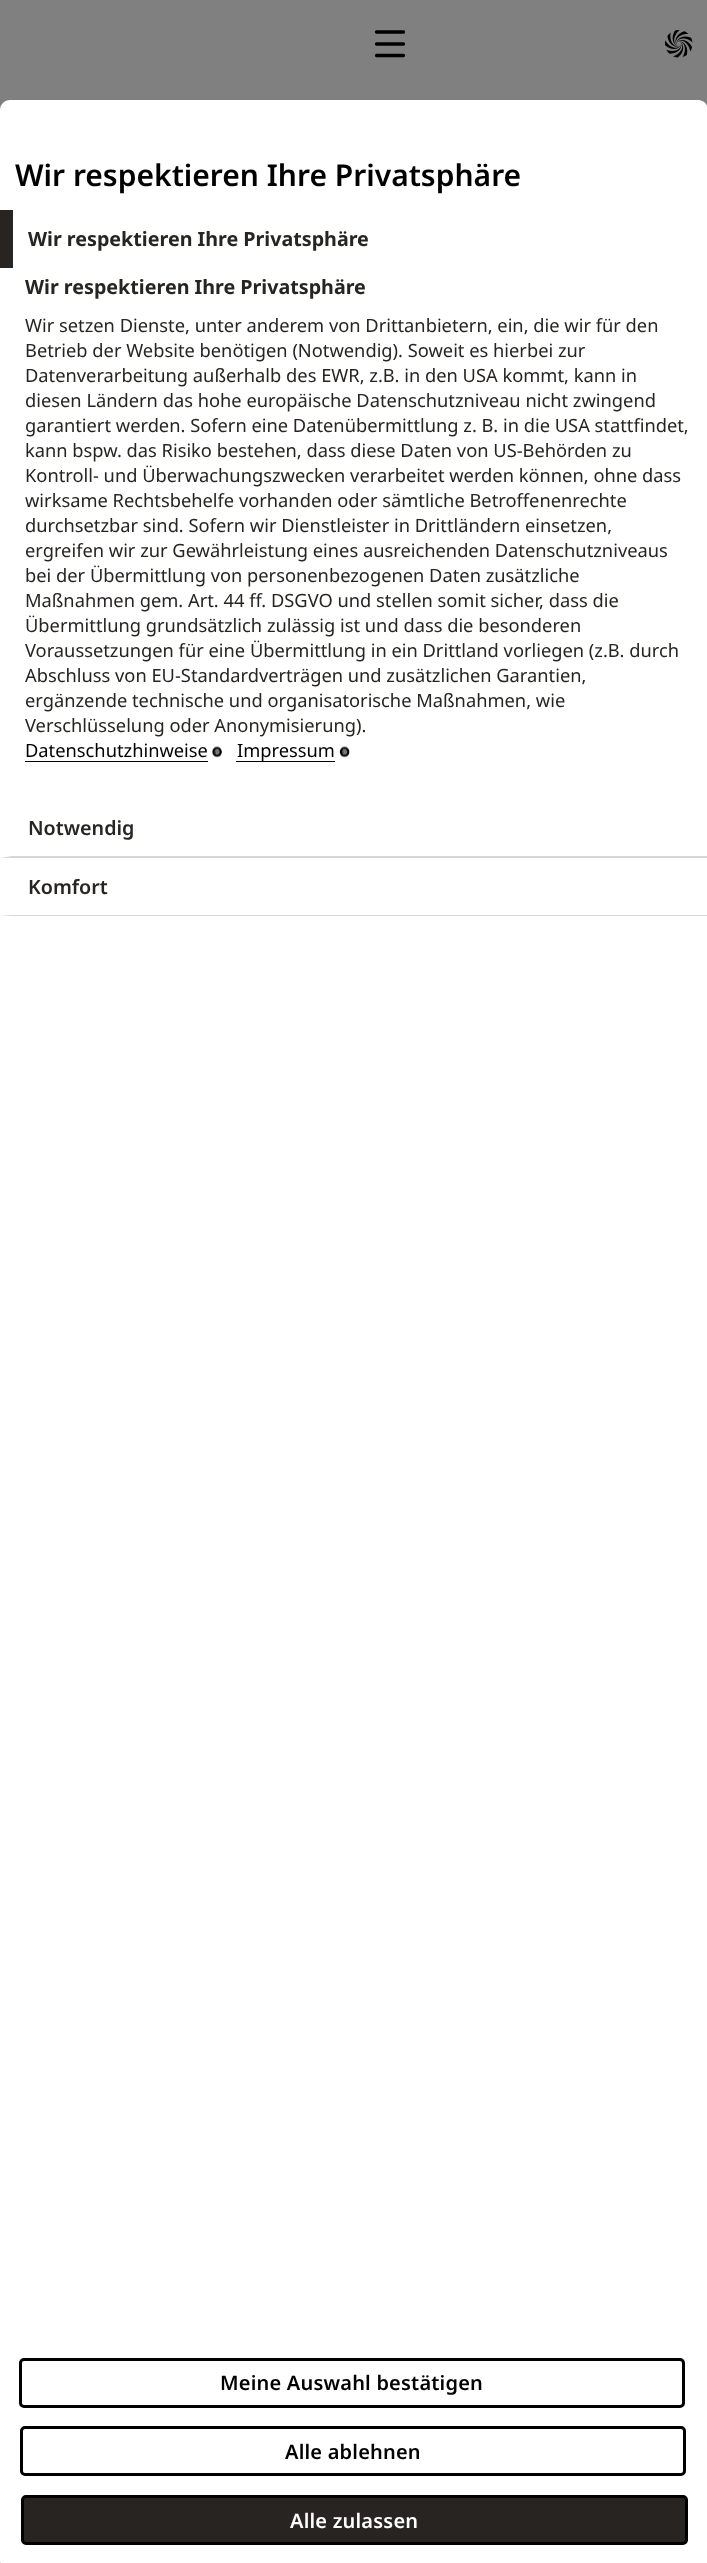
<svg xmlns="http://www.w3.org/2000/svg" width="707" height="2563">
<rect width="100%" height="100%" fill="#808080"/>
<path d="M376.5 32h27m-27 12h27m-27 11.5h27" fill="none" stroke="#000" stroke-width="3.3" stroke-linecap="round" stroke-linejoin="round"/>
<image x="665" y="30" width="28" height="28" href="media/1.png"/>
<path d="M10 100h688c5.5 0 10 4.5 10 10v2451.5c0 1.5-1 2.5-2.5 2.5h-703c-1.5 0-2.5-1-2.5-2.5v-2451.5c0-5.5 4.5-10 10-10z" fill="#fff"/>
<text x="15" y="186" style="font-family:Noto Sans;font-size:30px;font-weight:600;fill:#000">Wir respektieren Ihre Privatsphäre</text>
<rect y="210" width="13" height="58" fill="#272422"/>
<text x="28" y="246" style="font-family:Noto Sans;font-size:19.7px;font-weight:bold;fill:#272422">Wir respektieren Ihre Privatsphäre</text>
<text x="25" y="294" style="font-family:Noto Sans;font-size:19.7px;font-weight:bold;fill:#272422">Wir respektieren Ihre Privatsphäre</text>
<text x="25" y="332" style="font-family:Noto Sans;font-size:18.3px;fill:#272422">Wir setzen Dienste, unter anderem von Drittanbietern, ein, die wir für den</text>
<text x="25" y="357" style="font-family:Noto Sans;font-size:18.3px;fill:#272422">Betrieb der Website benötigen (Notwendig). Soweit es hierbei zur</text>
<text x="25" y="382" style="font-family:Noto Sans;font-size:18.3px;fill:#272422">Datenverarbeitung außerhalb des EWR, z.B. in den USA kommt, kann in</text>
<text x="25" y="407" style="font-family:Noto Sans;font-size:18.3px;fill:#272422">diesen Ländern das hohe europäische Datenschutzniveau nicht zwingend</text>
<text x="25" y="432" style="font-family:Noto Sans;font-size:18.3px;fill:#272422">garantiert werden. Sofern eine Datenübermittlung z. B. in die USA stattfindet,</text>
<text x="25" y="457" style="font-family:Noto Sans;font-size:18.3px;fill:#272422">kann bspw. das Risiko bestehen, dass diese Daten von US-Behörden zu</text>
<text x="25" y="482" style="font-family:Noto Sans;font-size:18.3px;fill:#272422">Kontroll- und Überwachungszwecken verarbeitet werden können, ohne dass</text>
<text x="25" y="507" style="font-family:Noto Sans;font-size:18.3px;fill:#272422">wirksame Rechtsbehelfe vorhanden oder sämtliche Betroffenenrechte</text>
<text x="25" y="532" style="font-family:Noto Sans;font-size:18.3px;fill:#272422">durchsetzbar sind. Sofern wir Dienstleister in Drittländern einsetzen,</text>
<text x="25" y="557" style="font-family:Noto Sans;font-size:18.3px;fill:#272422">ergreifen wir zur Gewährleistung eines ausreichenden Datenschutzniveaus</text>
<text x="25" y="582" style="font-family:Noto Sans;font-size:18.3px;fill:#272422">bei der Übermittlung von personenbezogenen Daten zusätzliche</text>
<text x="25" y="607" style="font-family:Noto Sans;font-size:18.3px;fill:#272422">Maßnahmen gem. Art. 44 ff. DSGVO und stellen somit sicher, dass die</text>
<text x="25" y="632" style="font-family:Noto Sans;font-size:18.3px;fill:#272422">Übermittlung grundsätzlich zulässig ist und dass die besonderen</text>
<text x="25" y="657" style="font-family:Noto Sans;font-size:18.3px;fill:#272422">Voraussetzungen für eine Übermittlung in ein Drittland vorliegen (z.B. durch</text>
<text x="25" y="682" style="font-family:Noto Sans;font-size:18.3px;fill:#272422">Abschluss von EU-Standardverträgen und zusätzlichen Garantien,</text>
<text x="25" y="707" style="font-family:Noto Sans;font-size:18.3px;fill:#272422">ergänzende technische und organisatorische Maßnahmen, wie</text>
<text x="25" y="732" style="font-family:Noto Sans;font-size:18.3px;fill:#272422">Verschlüsselung oder Anonymisierung).</text>
<text x="25" y="757" style="font-family:Noto Sans;font-size:18.3px;fill:#000">Datenschutzhinweise</text>
<rect x="25" y="761" width="183" height="1" fill="#000"/>
<image x="212" y="746" width="10" height="12" href="media/2.png"/>
<rect x="236" y="761" width="99" height="1" fill="#000"/>
<text x="237" y="757" style="font-family:Noto Sans;font-size:18.3px;fill:#000">Impressum</text>
<image x="339" y="746" width="11" height="12" href="media/3.png"/>
<path d="M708 858h-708l12-2h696z" fill="#d7d7d7"/>
<text x="28" y="835" style="font-family:Noto Sans;font-size:19.7px;font-weight:600;fill:#272422">Notwendig</text>
<path d="M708 916h-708l12-1h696z" fill="#d7d7d7"/>
<text x="28" y="894" style="font-family:Noto Sans;font-size:19.7px;font-weight:600;fill:#272422">Komfort</text>
<rect x="20.5" y="2359.5" width="663" height="47" rx="3.5" fill="none" stroke="#000" stroke-width="3"/>
<text x="220" y="2390" style="font-family:Noto Sans;font-size:20px;font-weight:600;letter-spacing:0.2px;fill:#000">Meine Auswahl bestätigen</text>
<rect x="21.5" y="2427.5" width="663" height="47" rx="3.5" fill="none" stroke="#000" stroke-width="3"/>
<text x="285" y="2459" style="font-family:Noto Sans;font-size:20px;font-weight:600;letter-spacing:0.2px;fill:#000">Alle ablehnen</text>
<rect x="22.5" y="2496.5" width="664" height="47" rx="3.5" fill="#272422" stroke="#000" stroke-width="3"/>
<text x="290" y="2528" style="font-family:Noto Sans;font-size:20px;font-weight:600;letter-spacing:0.2px;fill:#fff">Alle zulassen</text>
</svg>
